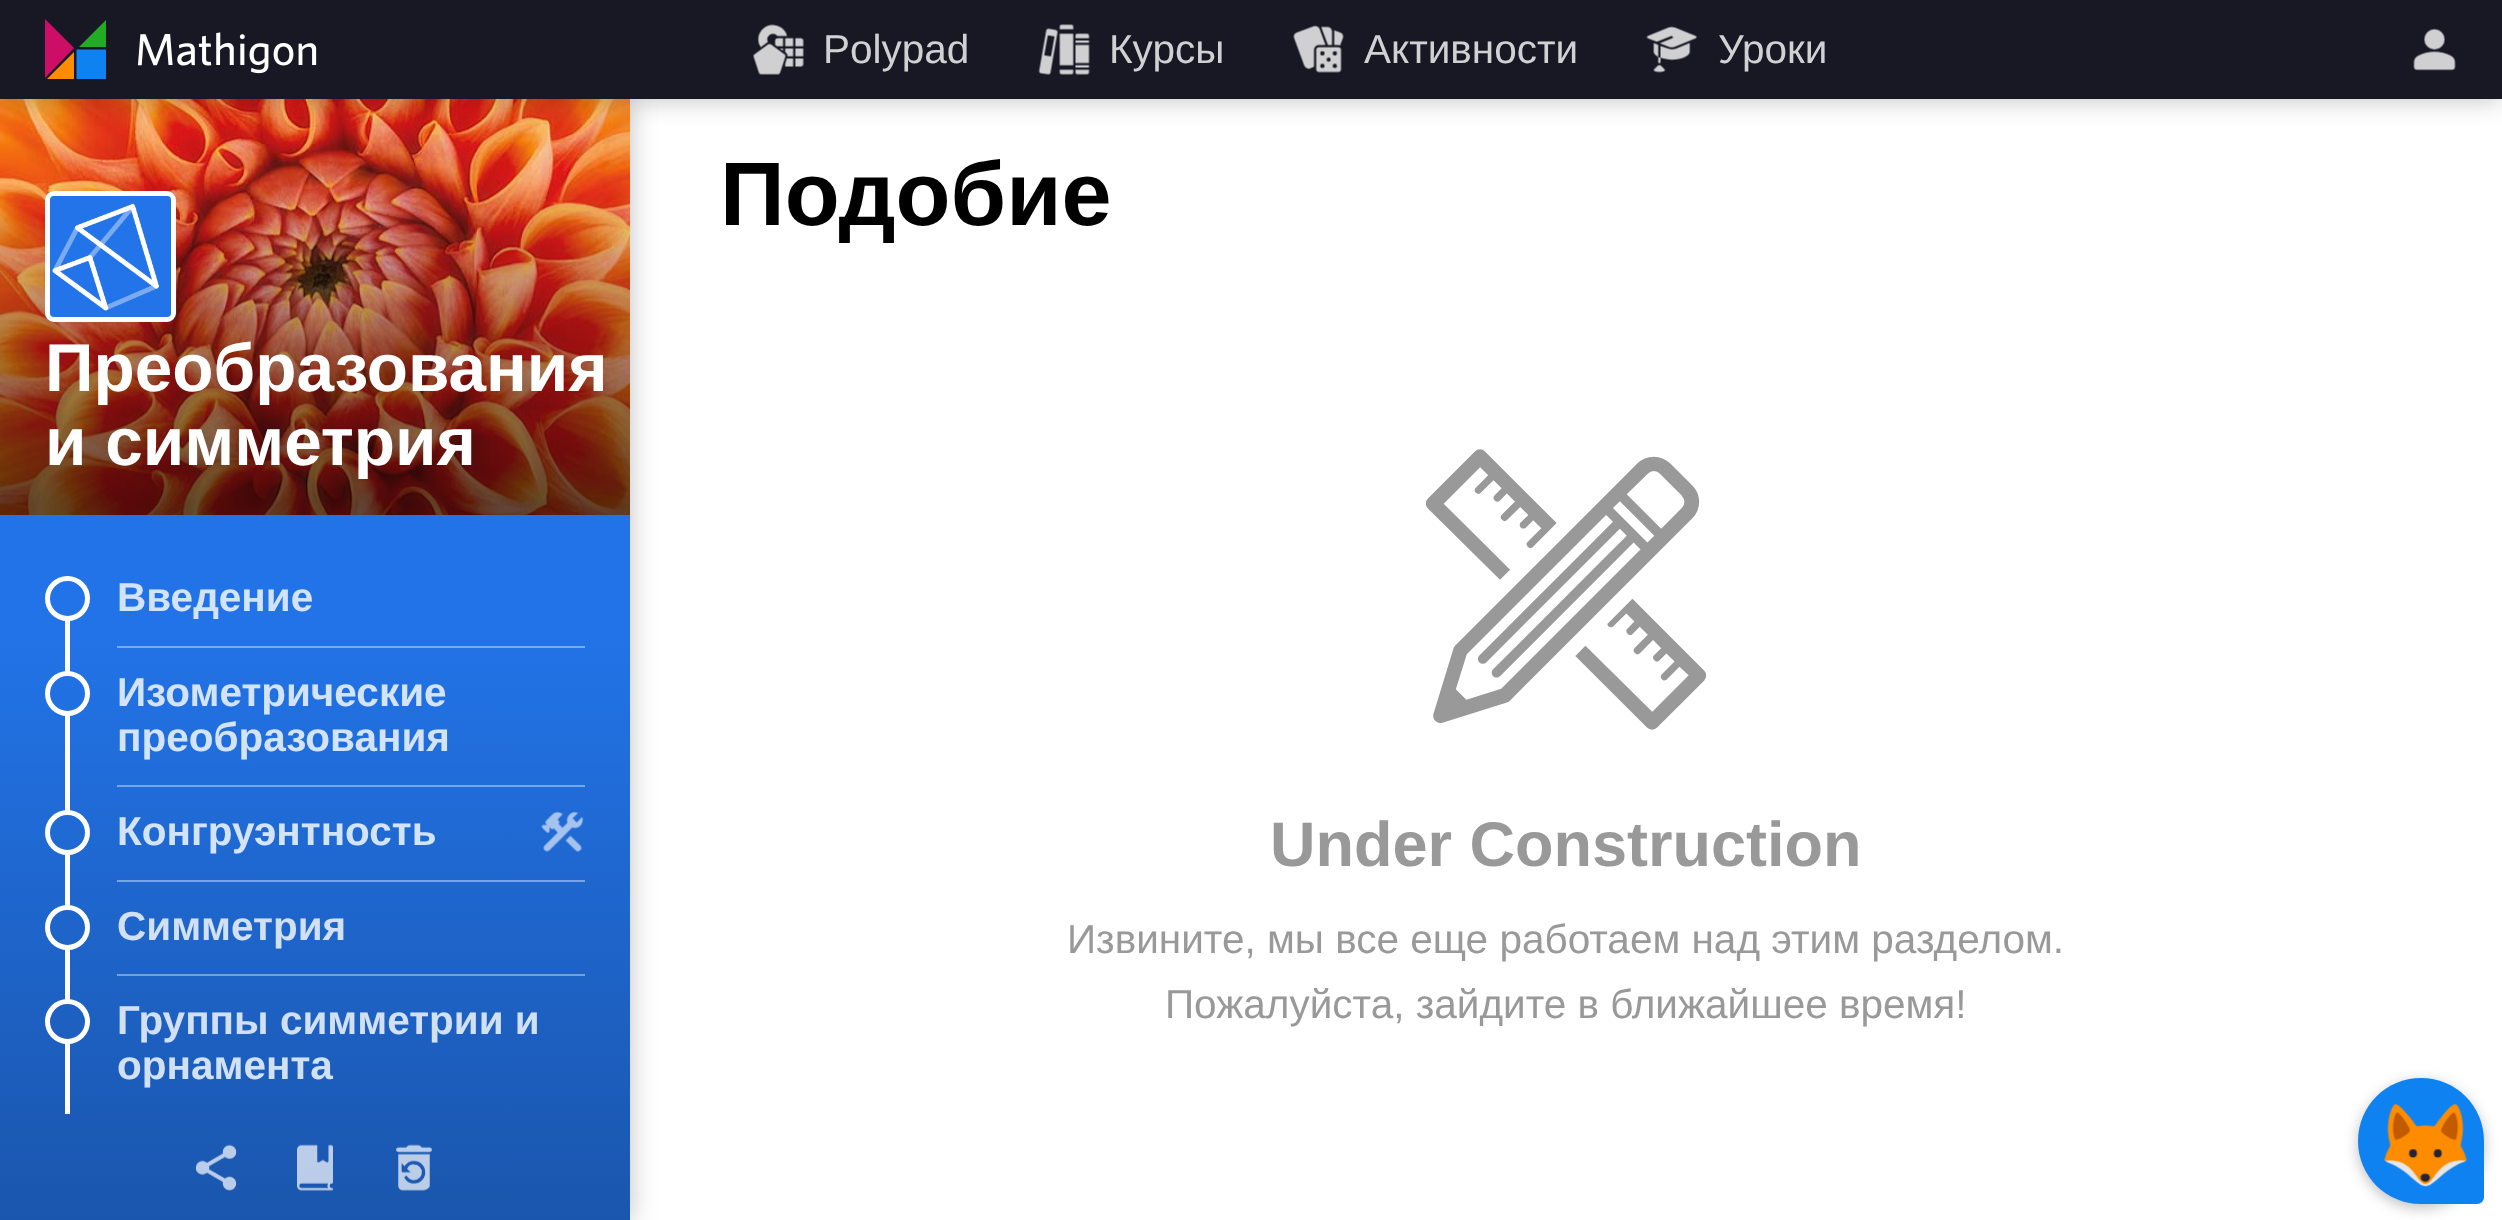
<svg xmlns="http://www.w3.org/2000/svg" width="2502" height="1220">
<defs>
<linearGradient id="g1" gradientUnits="userSpaceOnUse" x1="315" y1="99" x2="315" y2="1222"><stop offset="0.48" stop-color="#2273e7"/><stop offset="1" stop-color="#1a56ad"/></linearGradient>
</defs>
<rect width="100%" height="100%" fill="#fff"/>
<rect y="99" width="630" height="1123" fill="#00000040" filter="blur(13.5px)"/>
<image x="0" y="99" width="630" height="416" href="media/7.png"/>
<rect width="2502" height="99" fill="#00000040" filter="blur(13.5px)"/>
<rect width="2502" height="99" fill="#181824"/>
<path d="M74 79v-27l-27 27z" fill="#fd8c00"/>
<path d="M45 19v59l29-30z" fill="#cd0e66"/>
<path d="M106 20l-27 27h27" fill="#22ab24"/>
<path d="M106 49.5h-29.5v29.5h29.5" fill="#0f82f2"/>
<image x="138" y="32" width="179" height="42" href="media/1.png"/>
<image x="753" y="24" width="51" height="51" href="media/2.png"/>
<text x="823" y="63" style="font-family:Liberation Sans;font-size:40.5px;fill:#d1d1d3">Polypad</text>
<image x="1038" y="24" width="52" height="51" href="media/3.png"/>
<text x="1109" y="63" style="font-family:Liberation Sans;font-size:40.5px;fill:#d1d1d3">Курсы</text>
<image x="1293" y="25" width="51" height="48" href="media/4.png"/>
<text x="1364" y="63" style="font-family:Liberation Sans;font-size:40.5px;fill:#d1d1d3">Активности</text>
<image x="1646" y="26" width="51" height="47" href="media/5.png"/>
<text x="1718" y="63" style="font-family:Liberation Sans;font-size:40.5px;fill:#d1d1d3">Уроки</text>
<image x="2413" y="28" width="43" height="43" href="media/6.png"/>
<rect y="515" width="630" height="705" fill="url(#g1)"/>
<rect x="45" y="191" width="131" height="131" rx="9" fill="#2274e8"/>
<image x="52" y="203" width="107" height="108" href="media/8.png"/>
<rect x="47.5" y="193.5" width="126" height="126" rx="6.5" fill="none" stroke="#fff" stroke-width="5"/>
<text x="45" y="391" style="font-family:Liberation Sans;font-size:67.5px;font-weight:bold;fill:#fff">Преобразования</text>
<text x="45" y="465" style="font-family:Liberation Sans;font-size:67.5px;font-weight:bold;fill:#fff">и симметрия</text>
<circle cx="67.5" cy="598.5" r="20" fill="none" stroke="#fff" stroke-width="5"/>
<text x="117" y="611" style="font-family:Liberation Sans;font-size:40.5px;font-weight:bold;fill:#d3e3fa">Введение</text>
<rect x="65" y="619" width="5" height="54" fill="#fff"/>
<rect x="117" y="646" width="468" height="2" fill="#7aabf0"/>
<circle cx="67.5" cy="693.5" r="20" fill="none" stroke="#fff" stroke-width="5"/>
<text x="117" y="706" style="font-family:Liberation Sans;font-size:40.5px;font-weight:bold;fill:#d3e3fa">Изометрические</text>
<rect x="65" y="713" width="5" height="99" fill="#fff"/>
<text x="117" y="751" style="font-family:Liberation Sans;font-size:40.5px;font-weight:bold;fill:#d3e3fa">преобразования</text>
<rect x="117" y="785" width="468" height="2" fill="#79a7e8"/>
<circle cx="67.5" cy="832.5" r="20" fill="none" stroke="#fff" stroke-width="5"/>
<text x="117" y="845" style="font-family:Liberation Sans;font-size:40.5px;font-weight:bold;fill:#d3e3fa">Конгруэнтность</text>
<image x="541" y="811" width="43" height="41" href="media/9.png"/>
<rect x="65" y="853" width="5" height="54" fill="#fff"/>
<rect x="117" y="880" width="468" height="2" fill="#79a4e2"/>
<circle cx="67.5" cy="927.5" r="20" fill="none" stroke="#fff" stroke-width="5"/>
<text x="117" y="940" style="font-family:Liberation Sans;font-size:40.5px;font-weight:bold;fill:#d2e0f4">Симметрия</text>
<rect x="65" y="947" width="5" height="54" fill="#fff"/>
<rect x="117" y="974" width="468" height="2" fill="#77a1dd"/>
<circle cx="67.5" cy="1021.5" r="20" fill="none" stroke="#fff" stroke-width="5"/>
<text x="117" y="1034" style="font-family:Liberation Sans;font-size:40.5px;font-weight:bold;fill:#d2e0f4">Группы симметрии и</text>
<rect x="65" y="1042" width="5" height="72" fill="#fff"/>
<text x="117" y="1079" style="font-family:Liberation Sans;font-size:40.5px;font-weight:bold;fill:#d2e0f4">орнамента</text>
<image x="195" y="1144" width="42" height="47" href="media/10.png"/>
<image x="297" y="1144" width="36" height="47" href="media/11.png"/>
<image x="396" y="1144" width="36" height="47" href="media/12.png"/>
<text x="720" y="225" style="font-family:Liberation Sans;font-size:90px;font-weight:bold;fill:#000">Подобие</text>
<image x="1425" y="449" width="282" height="281" href="media/13.png"/>
<text x="1270" y="866" style="font-family:Liberation Sans;font-size:63px;font-weight:bold;fill:#999">Under Construction</text>
<text x="1067" y="953" style="font-family:Liberation Sans;font-size:40.5px;fill:#999">Извините, мы все еще работаем над этим разделом.</text>
<text x="1165" y="1018" style="font-family:Liberation Sans;font-size:40.5px;fill:#999">Пожалуйста, зайдите в ближайшее время!</text>
<rect x="2358" y="1082" width="126" height="126" rx="63" fill="#00000040" filter="blur(7px)"/>
<path d="M2421 1078c35 0 63 28 63 63v56c0 4-3 7-7 7h-56c-35 0-63-28-63-63c0-35 28-63 63-63z" fill="#0f82f2"/>
<image x="2384" y="1104" width="83" height="83" href="media/14.png"/>
</svg>
